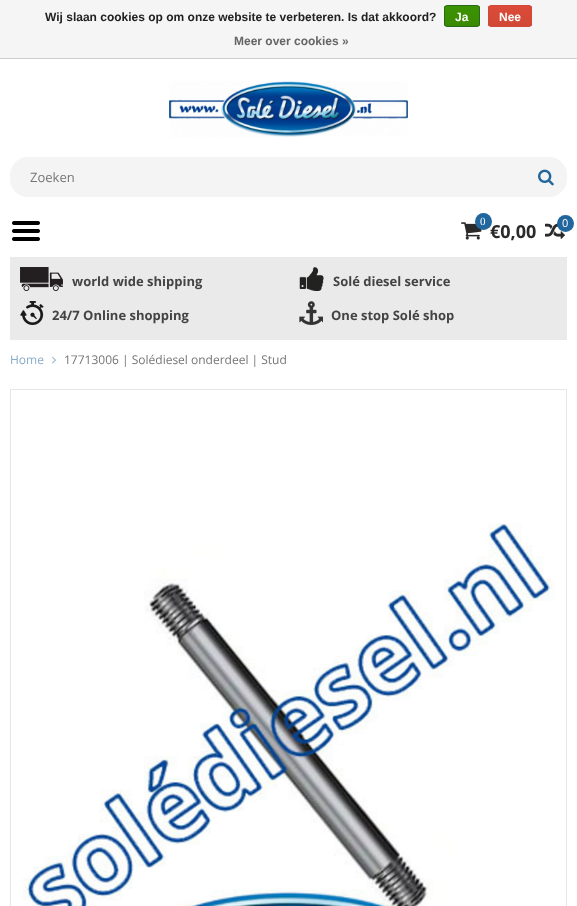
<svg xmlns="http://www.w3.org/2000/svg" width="577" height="906">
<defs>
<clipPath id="clip1"><rect x="444" y="5" width="36" height="22" rx="3"/></clipPath>
<linearGradient id="g1" gradientUnits="userSpaceOnUse" x1="462" y1="6" x2="462" y2="26"><stop offset="0" stop-color="#3c9300"/><stop offset="1" stop-color="#398a00"/></linearGradient>
<clipPath id="clip2"><rect x="488" y="5" width="44" height="22" rx="3"/></clipPath>
<linearGradient id="g2" gradientUnits="userSpaceOnUse" x1="510" y1="6" x2="510" y2="26"><stop offset="0" stop-color="#dc4a38"/><stop offset="1" stop-color="#d14836"/></linearGradient>
</defs>
<rect width="100%" height="100%" fill="#fff"/>
<rect width="577" height="58" fill="#f5f5f5"/>
<rect y="58" width="577" height="1" fill="#ccc"/>
<text x="45" y="21" style="font-family:Liberation Sans;font-size:12px;font-weight:bold;fill:#222">Wij slaan cookies op om onze website te verbeteren. Is dat akkoord?</text>
<g clip-path="url(#clip1)">
<rect x="444" y="6" width="36" height="20" fill="url(#g1)"/>
</g>
<rect x="444.5" y="5.5" width="35" height="21" rx="2.5" fill="none" stroke="#29691d"/>
<text x="455" y="21" style="font-family:Liberation Sans;font-size:12px;font-weight:bold;fill:#fff">Ja</text>
<g clip-path="url(#clip2)">
<rect x="488" y="6" width="44" height="20" fill="url(#g2)"/>
</g>
<rect x="488.5" y="5.5" width="43" height="21" rx="2.5" fill="none" stroke="#d14836"/>
<text x="499" y="21" style="font-family:Liberation Sans;font-size:12px;font-weight:bold;fill:#fff">Nee</text>
<text x="234" y="45" style="font-family:Liberation Sans;font-size:12px;font-weight:bold;fill:#666">Meer over cookies »</text>
<image x="169" y="81" width="239" height="56" href="media/1.png"/>
<rect x="10" y="157" width="557" height="40" rx="18" fill="#f4f4f4"/>
<text x="30" y="182" style="font-family:Open Sans;font-size:13px;fill:#757575">Zoeken</text>
<image x="538" y="169" width="16" height="17" href="media/2.png"/>
<image x="12" y="221" width="28" height="20" href="media/3.png"/>
<image x="461" y="222" width="21" height="18" href="media/4.png"/>
<text x="490" y="238" style="font-family:Open Sans;font-size:18px;font-weight:bold;fill:#2a2a2a">€0,00</text>
<circle cx="483.5" cy="221.5" r="8.5" fill="#21669d"/>
<text x="480" y="225" style="font-family:Liberation Serif;font-size:11px;fill:#fff">0</text>
<image x="545" y="223" width="20" height="16" href="media/5.png"/>
<circle cx="565.5" cy="223.5" r="8.5" fill="#21669d"/>
<text x="562" y="227" style="font-family:Open Sans;font-size:11px;fill:#fff">0</text>
<rect x="10" y="257" width="557" height="83" fill="#eaeaea"/>
<image x="20" y="267" width="43" height="24" href="media/6.png"/>
<text x="72" y="286" style="font-family:Open Sans;font-size:13px;font-weight:bold;fill:#444">world wide shipping</text>
<image x="299" y="267" width="25" height="24" href="media/7.png"/>
<text x="333" y="286" style="font-family:Open Sans;font-size:13px;font-weight:bold;fill:#444">Solé diesel service</text>
<image x="20" y="301" width="24" height="24" href="media/8.png"/>
<text x="52" y="320" style="font-family:Open Sans;font-size:13px;font-weight:bold;fill:#444">24/7 Online shopping</text>
<image x="299" y="301" width="24" height="24" href="media/9.png"/>
<text x="331" y="320" style="font-family:Open Sans;font-size:13px;font-weight:bold;fill:#444">One stop Solé shop</text>
<text x="10" y="364" style="font-family:Open Sans;font-size:12px;fill:#87abc7">Home</text>
<image x="52" y="356" width="4" height="8" href="media/10.png"/>
<text x="64" y="364" style="font-family:Open Sans;font-size:12px;fill:#757575">17713006 | Solédiesel onderdeel | Stud</text>
<rect x="10.5" y="389.5" width="556" height="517" fill="none" stroke="#e7e7e7"/>
<image x="22" y="523" width="533" height="383" href="media/11.png"/>
</svg>
